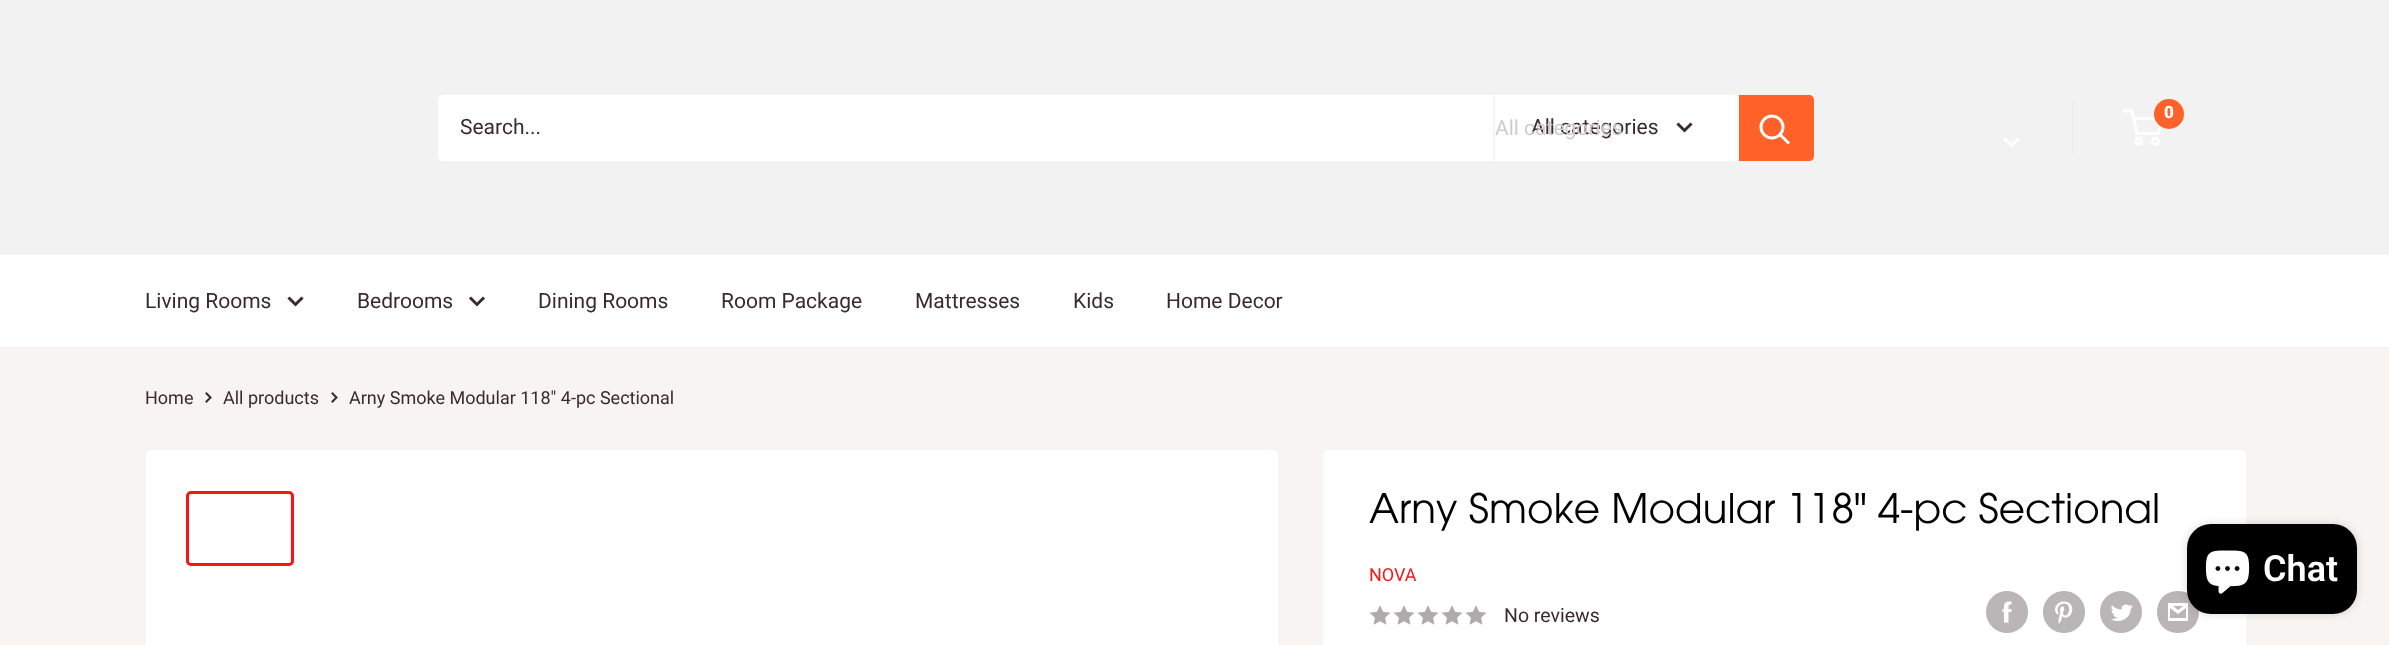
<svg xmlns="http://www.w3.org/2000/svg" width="2389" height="645">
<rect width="100%" height="100%" fill="#f7f4f2"/>
<rect width="2389" height="255" fill="#f2f2f2"/>
<path d="M2017.5 139.5l-6 6l-6-6" fill="none" stroke="#fff" stroke-width="3" stroke-linecap="square"/>
<rect x="2072" y="102" width="2" height="51" fill="#efedec"/>
<circle cx="2139" cy="141" r="3" fill="none" stroke="#fff" stroke-width="3"/>
<circle cx="2155.5" cy="141" r="3" fill="none" stroke="#fff" stroke-width="3"/>
<path d="M2133.5 118.5h27.5l-2.5 15h-21.5l-5-22.5h-9.5" fill="none" stroke="#fff" stroke-width="3"/>
<circle cx="2169" cy="114" r="15" fill="#ff6128"/>
<text x="2164" y="118" style="font-family:Roboto;font-size:17px;font-weight:900;fill:#fff">0</text>
<rect x="438" y="95" width="1376" height="66" rx="5" fill="#fff"/>
<text x="460" y="134" style="font-family:Roboto;font-size:21px;fill:#3a2a2f">Search...</text>
<rect x="1493" y="95" width="2" height="66" fill="#f8f6f5"/>
<text x="1531" y="134" style="font-family:Roboto;font-size:21px;fill:#3a2a2f">All categories</text>
<path d="M1690.5 124.5l-6 6l-6-6" fill="none" stroke="#3a2a2f" stroke-width="3" stroke-linecap="square"/>
<text x="1495" y="135" style="font-family:Roboto;font-size:21px;fill:#d0cccd">All categories</text>
<path d="M1739 95h70c3 0 5 2 5 5v56c0 3-2 5-5 5h-70z" fill="#ff6128"/>
<path d="M1788 142.5l-7.5-7.5" fill="none" stroke="#fff" stroke-width="3" stroke-linecap="square"/>
<circle cx="1772" cy="127" r="11" fill="none" stroke="#fff" stroke-width="3"/>
<rect y="255" width="2389" height="92" fill="#fff"/>
<text x="145" y="308" style="font-family:Roboto;font-size:21px;fill:#3a2a2f">Living Rooms</text>
<path d="M301.5 298.5l-6 6l-6-6" fill="none" stroke="#3a2a2f" stroke-width="3" stroke-linecap="square"/>
<text x="357" y="308" style="font-family:Roboto;font-size:21px;fill:#3a2a2f">Bedrooms</text>
<path d="M483 298.5l-6 6l-6-6" fill="none" stroke="#3a2a2f" stroke-width="3" stroke-linecap="square"/>
<text x="538" y="308" style="font-family:Roboto;font-size:21px;fill:#3a2a2f">Dining Rooms</text>
<text x="721" y="308" style="font-family:Roboto;font-size:21px;fill:#3a2a2f">Room Package</text>
<text x="915" y="308" style="font-family:Roboto;font-size:21px;fill:#3a2a2f">Mattresses</text>
<text x="1073" y="308" style="font-family:Roboto;font-size:21px;fill:#3a2a2f">Kids</text>
<text x="1166" y="308" style="font-family:Roboto;font-size:21px;fill:#3a2a2f">Home Decor</text>
<text x="145" y="404" style="font-family:Roboto;font-size:18px;fill:#3a2a2f">Home</text>
<path d="M206.5 393.5l4 4l-4 4" fill="none" stroke="#3a2a2f" stroke-width="2" stroke-linecap="square"/>
<text x="223" y="404" style="font-family:Roboto;font-size:18px;fill:#3a2a2f">All products</text>
<path d="M332.5 393.5l4 4l-4 4" fill="none" stroke="#3a2a2f" stroke-width="2" stroke-linecap="square"/>
<text x="349" y="404" style="font-family:Roboto;font-size:18px;fill:#3a2a2f">Arny Smoke Modular 118" 4-pc Sectional</text>
<rect x="147" y="451" width="1130" height="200" rx="4" fill="#fff" stroke="#fff" stroke-width="2"/>
<rect x="187.5" y="492.5" width="105" height="72" rx="3.5" fill="none" stroke="#f41717" stroke-width="3"/>
<rect x="1324" y="451" width="921" height="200" rx="4" fill="#fff" stroke="#fff" stroke-width="2"/>
<text x="1369" y="523" style="font-family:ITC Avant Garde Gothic;font-size:40.5px;fill:#000">Arny Smoke Modular 118" 4-pc Sectional</text>
<text x="1369" y="581" style="font-family:Roboto;font-size:18px;fill:#f41717">NOVA</text>
<image x="1369" y="605" width="22" height="20" href="media/1.png"/>
<image x="1393" y="605" width="22" height="20" href="media/1.png"/>
<image x="1417" y="605" width="22" height="20" href="media/1.png"/>
<image x="1441" y="605" width="22" height="20" href="media/1.png"/>
<image x="1465" y="605" width="22" height="20" href="media/1.png"/>
<text x="1504" y="622" style="font-family:Roboto;font-size:19.5px;fill:#3a2a2f">No reviews</text>
<image x="1986" y="591" width="42" height="42" href="media/2.png"/>
<image x="2043" y="591" width="42" height="42" href="media/3.png"/>
<image x="2100" y="591" width="42" height="42" href="media/4.png"/>
<path d="M2178 633c-28 0-28-42 0-42c28 0 28 42 0 42zm-5-27h10l-5 4zm13 2v10h-16v-10l8 6zm2-5h-20v18h20z" fill="#bab4b6"/>
<rect x="2187" y="524" width="170" height="90" rx="24" fill="#00000026" filter="blur(4px)"/>
<rect x="2187" y="524" width="170" height="90" rx="24" fill="#000"/>
<image x="2205" y="550" width="45" height="44" href="media/5.png"/>
<text x="2263" y="581" style="font-family:Roboto;font-size:36px;font-weight:600;fill:#fff">Chat</text>
</svg>
